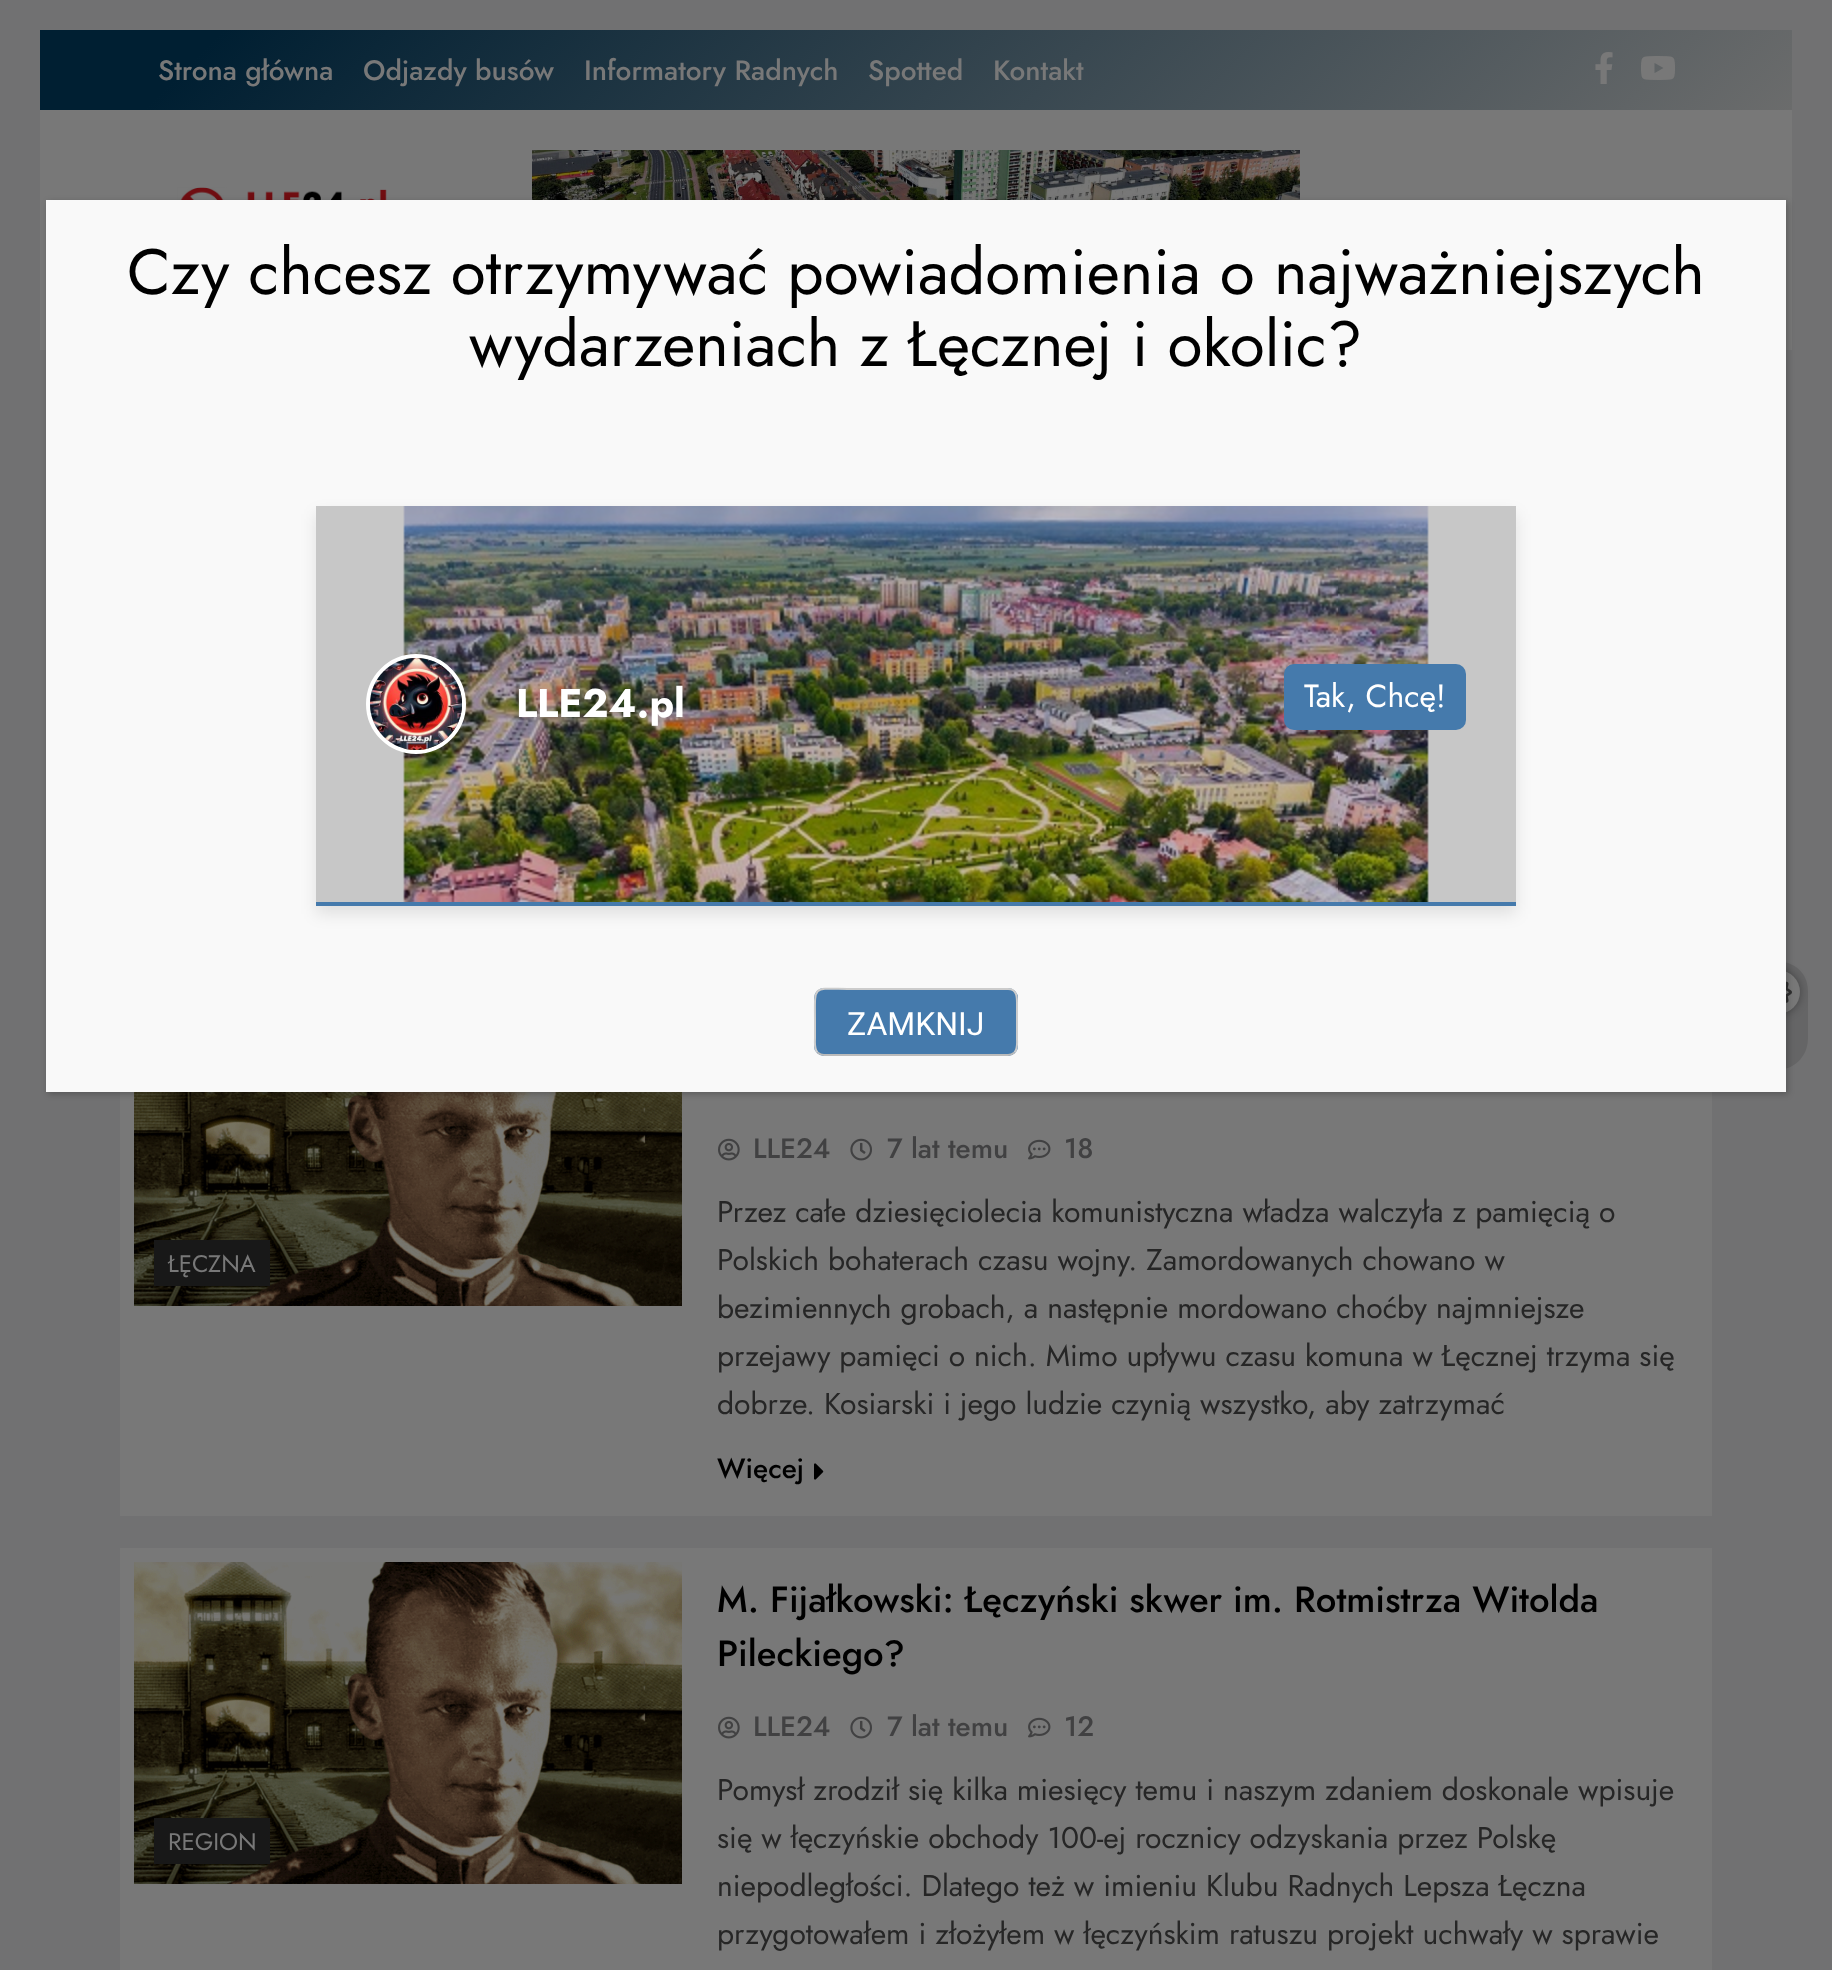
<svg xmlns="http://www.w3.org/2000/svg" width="1832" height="1970">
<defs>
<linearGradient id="g1" gradientUnits="userSpaceOnUse" x1="458" y1="-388" x2="1374" y2="528"><stop offset="0.1" stop-color="#001f32"/><stop offset="1" stop-color="#6b6c6c"/></linearGradient>
<clipPath id="clip1"><path d="M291 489h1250v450h-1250zm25 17h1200v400h-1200z" clip-rule="evenodd"/></clipPath>
</defs>
<rect width="100%" height="100%" fill="#717172"/>
<rect x="40" y="30" width="1752" height="80" fill="url(#g1)"/>
<text x="158" y="80" style="font-family:Jost;font-size:28px;font-weight:500;fill:#787878">Strona główna</text>
<text x="363" y="80" style="font-family:Jost;font-size:28px;font-weight:500;fill:#787878">Odjazdy busów</text>
<text x="584" y="80" style="font-family:Jost;font-size:28px;font-weight:500;fill:#787878">Informatory Radnych</text>
<text x="868" y="80" style="font-family:Jost;font-size:28px;font-weight:500;fill:#787878">Spotted</text>
<text x="993" y="80" style="font-family:Jost;font-size:28px;font-weight:500;fill:#787878">Kontakt</text>
<image x="1595" y="52" width="18" height="32" href="media/1.png"/>
<image x="1641" y="56" width="34" height="24" href="media/2.png"/>
<rect x="40" y="110" width="1752" height="240" fill="#787878"/>
<image x="177" y="187" width="210" height="13" href="media/3.png"/>
<image x="532" y="150" width="768" height="50" href="media/4.png"/>
<path d="M1808 991v48c-1 34-46 43-58 12c-4-9-3-25-3-36v-24c2-41 61-38 61 0z" fill="#0000001a"/>
<rect x="1756" y="970" width="44" height="44" rx="22" fill="#00000059" filter="blur(5px)"/>
<circle cx="1778" cy="992" r="22" fill="#787878"/>
<image x="1786" y="981" width="6" height="22" href="media/5.png"/>
<rect x="120" y="1092" width="1592" height="424" fill="#787878"/>
<image x="134" y="1092" width="548" height="214" href="media/6.png"/>
<rect x="154" y="1240" width="116" height="46" fill="#181818"/>
<text x="168" y="1272" style="font-family:Jost;font-size:24px;fill:#787878">ŁĘCZNA</text>
<image x="718" y="1138" width="22" height="23" href="media/7.png"/>
<text x="753" y="1158" style="font-family:Jost;font-size:28px;font-weight:500;fill:#414142">LLE24</text>
<image x="850" y="1138" width="22" height="23" href="media/8.png"/>
<text x="887" y="1158" style="font-family:Jost;font-size:28px;font-weight:500;fill:#414142">7 lat temu</text>
<image x="1028" y="1139" width="23" height="21" href="media/9.png"/>
<text x="1064" y="1158" style="font-family:Jost;font-size:28px;font-weight:500;fill:#414142">18</text>
<text x="717" y="1222" style="font-family:Jost;font-size:30px;fill:#262626">Przez całe dziesięciolecia komunistyczna władza walczyła z pamięcią o</text>
<text x="717" y="1270" style="font-family:Jost;font-size:30px;fill:#262626">Polskich bohaterach czasu wojny. Zamordowanych chowano w</text>
<text x="717" y="1318" style="font-family:Jost;font-size:30px;fill:#262626">bezimiennych grobach, a następnie mordowano choćby najmniejsze</text>
<text x="717" y="1366" style="font-family:Jost;font-size:30px;fill:#262626">przejawy pamięci o nich. Mimo upływu czasu komuna w Łęcznej trzyma się</text>
<text x="717" y="1414" style="font-family:Jost;font-size:30px;fill:#262626">dobrze. Kosiarski i jego ludzie czynią wszystko, aby zatrzymać</text>
<text x="717" y="1478" style="font-family:Jost;font-size:28px;font-weight:500;fill:#000">Więcej</text>
<image x="814" y="1463" width="10" height="17" href="media/10.png"/>
<rect x="120" y="1548" width="1592" height="422" fill="#787878"/>
<image x="134" y="1562" width="548" height="322" href="media/11.png"/>
<rect x="154" y="1818" width="116" height="46" fill="#181818"/>
<text x="168" y="1850" style="font-family:Jost;font-size:24px;fill:#787878">REGION</text>
<text x="717" y="1612" style="font-family:Jost;font-size:36.5px;font-weight:500;fill:#000">M. Fijałkowski: Łęczyński skwer im. Rotmistrza Witolda</text>
<text x="717" y="1666" style="font-family:Jost;font-size:36.5px;font-weight:500;fill:#000">Pileckiego?</text>
<image x="718" y="1716" width="22" height="23" href="media/7.png"/>
<text x="753" y="1736" style="font-family:Jost;font-size:28px;font-weight:500;fill:#414142">LLE24</text>
<image x="850" y="1716" width="22" height="23" href="media/8.png"/>
<text x="887" y="1736" style="font-family:Jost;font-size:28px;font-weight:500;fill:#414142">7 lat temu</text>
<image x="1028" y="1717" width="23" height="21" href="media/9.png"/>
<text x="1064" y="1736" style="font-family:Jost;font-size:28px;font-weight:500;fill:#414142">12</text>
<text x="717" y="1800" style="font-family:Jost;font-size:30px;fill:#262626">Pomysł zrodził się kilka miesięcy temu i naszym zdaniem doskonale wpisuje</text>
<text x="717" y="1848" style="font-family:Jost;font-size:30px;fill:#262626">się w łęczyńskie obchody 100-ej rocznicy odzyskania przez Polskę</text>
<text x="717" y="1896" style="font-family:Jost;font-size:30px;fill:#262626">niepodległości. Dlatego też w imieniu Klubu Radnych Lepsza Łęczna</text>
<text x="717" y="1944" style="font-family:Jost;font-size:30px;fill:#262626">przygotowałem i złożyłem w łęczyńskim ratuszu projekt uchwały w sprawie</text>
<rect x="48" y="202" width="1740" height="892" fill="#0202023b" filter="blur(3px)"/>
<rect x="46" y="200" width="1740" height="892" fill="#f9f9f9"/>
<text x="127" y="294" style="font-family:Jost;font-size:64px;fill:#000">Czy chcesz otrzymywać powiadomienia o najważniejszych</text>
<text x="469" y="366" style="font-family:Jost;font-size:64px;fill:#000">wydarzeniach z Łęcznej i okolic?</text>
<g clip-path="url(#clip1)">
<rect x="316" y="514" width="1200" height="400" fill="#0000001a" filter="blur(8px)"/>
</g>
<image x="403" y="506" width="1026" height="396" href="media/12.png"/>
<rect x="316" y="902" width="1200" height="4" fill="#457aac"/>
<rect x="316" y="506" width="1200" height="396" fill="#00000033"/>
<circle cx="416" cy="704" r="48" fill="none" stroke="#fff" stroke-width="4"/>
<image x="370" y="658" width="92" height="92" href="media/13.png"/>
<text x="516" y="717" style="font-family:Jost;font-size:40px;font-weight:bold;fill:#fff">LLE24.pl</text>
<rect x="1284" y="664" width="182" height="66" rx="10" fill="#457aac"/>
<text x="1304" y="707" style="font-family:Jost;font-size:32px;fill:#fff">Tak, Chcę!</text>
<rect x="814" y="988" width="204" height="68" rx="10" fill="#457aac"/>
<path d="M1014.5 1052.5c-2 1.5-4 2.5-6.5 2.5h-184c-2.5 0-4.5-1-6.5-2.5" fill="none" stroke="#bbb" stroke-width="2"/>
<path d="M817.5 1052.5c-3.5-4-2.5-9.5-2.5-14.5v-16c0-39.5-4-33 39.5-33h153.5c10 0 9 10 9 17v32c0 5 1 10.5-2.5 14.5" fill="none" stroke="#ccc" stroke-width="2"/>
<text x="847" y="1035" style="font-family:Roboto;font-size:32px;fill:#fff">ZAMKNIJ</text>
</svg>
